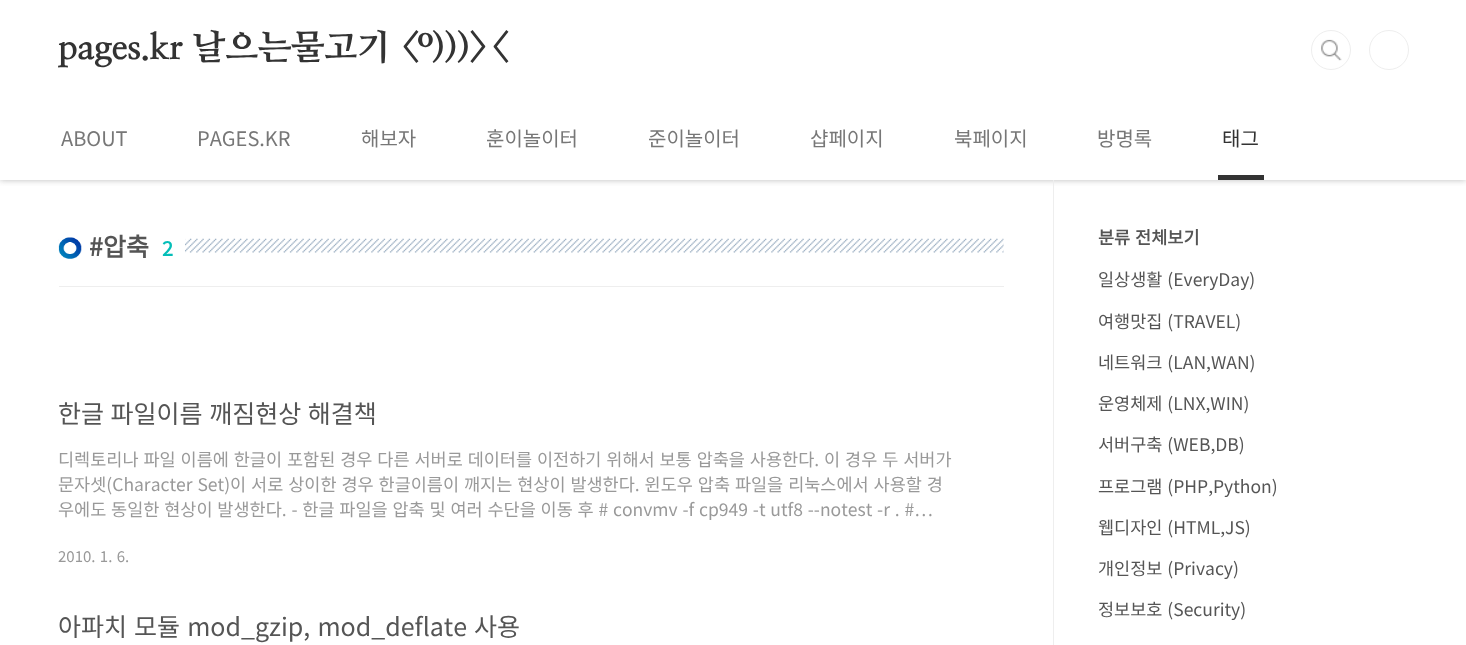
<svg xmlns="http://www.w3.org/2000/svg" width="1466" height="645">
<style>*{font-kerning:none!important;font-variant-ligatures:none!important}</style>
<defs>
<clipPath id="clip1"><rect x="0" y="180" width="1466" height="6"/></clipPath>
</defs>
<rect width="100%" height="100%" fill="#fff"/>
<g clip-path="url(#clip1)">
<rect width="1466" height="180" fill="#bbb" filter="blur(3px)"/>
</g>
<text x="58" y="59" style="font-family:NanumMyeongjo;font-size:35px;font-weight:800;letter-spacing:-0.25px;fill:#333">pages.kr 날으는물고기 &lt;º)))&gt;&lt;</text>
<rect x="1313.5" y="31.5" width="36" height="37" rx="18" fill="none" stroke="#eee"/>
<circle cx="1331" cy="50" r="20" fill="#fff"/>
<image x="1321" y="39" width="21" height="22" href="media/1.png"/>
<circle cx="1331" cy="50" r="19.5" fill="none" stroke="#eee"/>
<circle cx="1389" cy="50" r="19.5" fill="none" stroke="#eee"/>
<text x="61" y="146" style="font-family:Noto Sans KR;font-size:20px;font-weight:100;fill:#777">ABOUT</text>
<text x="197" y="146" style="font-family:Noto Sans KR;font-size:20px;font-weight:100;fill:#777">PAGES.KR</text>
<text x="361" y="146" style="font-family:Noto Sans KR;font-size:20px;font-weight:100;fill:#777">해보자</text>
<text x="486" y="146" style="font-family:Noto Sans KR;font-size:20px;font-weight:100;fill:#777">훈이놀이터</text>
<text x="648" y="146" style="font-family:Noto Sans KR;font-size:20px;font-weight:100;fill:#777">준이놀이터</text>
<text x="810" y="146" style="font-family:Noto Sans KR;font-size:20px;font-weight:100;fill:#777">샵페이지</text>
<text x="954" y="146" style="font-family:Noto Sans KR;font-size:20px;font-weight:100;fill:#777">북페이지</text>
<text x="1097" y="146" style="font-family:Noto Sans KR;font-size:20px;font-weight:100;fill:#777">방명록</text>
<text x="1222" y="146" style="font-family:Noto Sans KR;font-size:20px;font-weight:100;fill:#333">태그</text>
<rect x="1218" y="175" width="46" height="5" fill="#333"/>
<rect x="59" y="286" width="945" height="1" fill="#eee"/>
<image x="58" y="238" width="946" height="15" href="media/2.png"/>
<rect x="59" y="238" width="126" height="15" fill="#fff"/>
<image x="58" y="237" width="24" height="22" href="media/3.png"/>
<text x="89" y="256" style="font-family:Noto Sans KR;font-size:25px;font-weight:bold;fill:#555">#압축</text>
<text x="162" y="256" style="font-family:Noto Sans KR;font-size:20px;font-weight:bold;fill:#04beb8">2</text>
<text x="58" y="423" word-spacing="1" style="font-family:Noto Sans KR;font-size:25px;font-weight:100;fill:#555">한글 파일이름 깨짐현상 해결책</text>
<text x="58" y="466" word-spacing="1" style="font-family:Noto Sans KR;font-size:17.5px;font-weight:100;fill:#999">디렉토리나 파일 이름에 한글이 포함된 경우 다른 서버로 데이터를 이전하기 위해서 보통 압축을 사용한다. 이 경우 두 서버가</text>
<text x="58" y="491" word-spacing="1" style="font-family:Noto Sans KR;font-size:17.5px;font-weight:100;fill:#999">문자셋(Character Set)이 서로 상이한 경우 한글이름이 깨지는 현상이 발생한다. 윈도우 압축 파일을 리눅스에서 사용할 경</text>
<text x="58" y="516" word-spacing="0.9" style="font-family:Noto Sans KR;font-size:17.5px;font-weight:100;fill:#999">우에도 동일한 현상이 발생한다. - 한글 파일을 압축 및 여러 수단을 이동 후 # convmv -f cp949 -t utf8 --notest -r . #…</text>
<text x="58" y="562" word-spacing="1" style="font-family:Noto Sans KR;font-size:15px;font-weight:100;fill:#999">2010. 1. 6.</text>
<text x="58" y="636" word-spacing="1.5" style="font-family:Noto Sans KR;font-size:25px;font-weight:100;fill:#555">아파치 모듈 mod_gzip, mod_deflate</text>
<text x="474" y="636" style="font-family:Noto Sans KR;font-size:25px;font-weight:100;fill:#555">사용</text>
<rect x="1053" y="180" width="1" height="465" fill="#eee"/>
<text x="1098" y="244" word-spacing="1" style="font-family:Noto Sans KR;font-size:17.5px;font-weight:bold;fill:#555">분류 전체보기</text>
<text x="1098" y="286" word-spacing="1" style="font-family:Noto Sans KR;font-size:17.5px;font-weight:100;fill:#555">일상생활 (EveryDay)</text>
<text x="1098" y="328" word-spacing="1" style="font-family:Noto Sans KR;font-size:17.5px;font-weight:100;fill:#555">여행맛집 (TRAVEL)</text>
<text x="1098" y="369" word-spacing="1" style="font-family:Noto Sans KR;font-size:17.5px;font-weight:100;fill:#555">네트워크 (LAN,WAN)</text>
<text x="1098" y="410" word-spacing="1" style="font-family:Noto Sans KR;font-size:17.5px;font-weight:100;fill:#555">운영체제 (LNX,WIN)</text>
<text x="1098" y="451" word-spacing="1" style="font-family:Noto Sans KR;font-size:17.5px;font-weight:100;fill:#555">서버구축 (WEB,DB)</text>
<text x="1098" y="493" word-spacing="1" style="font-family:Noto Sans KR;font-size:17.5px;font-weight:100;fill:#555">프로그램 (PHP,Python)</text>
<text x="1098" y="534" word-spacing="1" style="font-family:Noto Sans KR;font-size:17.5px;font-weight:100;fill:#555">웹디자인 (HTML,JS)</text>
<text x="1098" y="575" word-spacing="1" style="font-family:Noto Sans KR;font-size:17.5px;font-weight:100;fill:#555">개인정보 (Privacy)</text>
<text x="1098" y="616" word-spacing="1" style="font-family:Noto Sans KR;font-size:17.5px;font-weight:100;fill:#555">정보보호 (Security)</text>
</svg>
